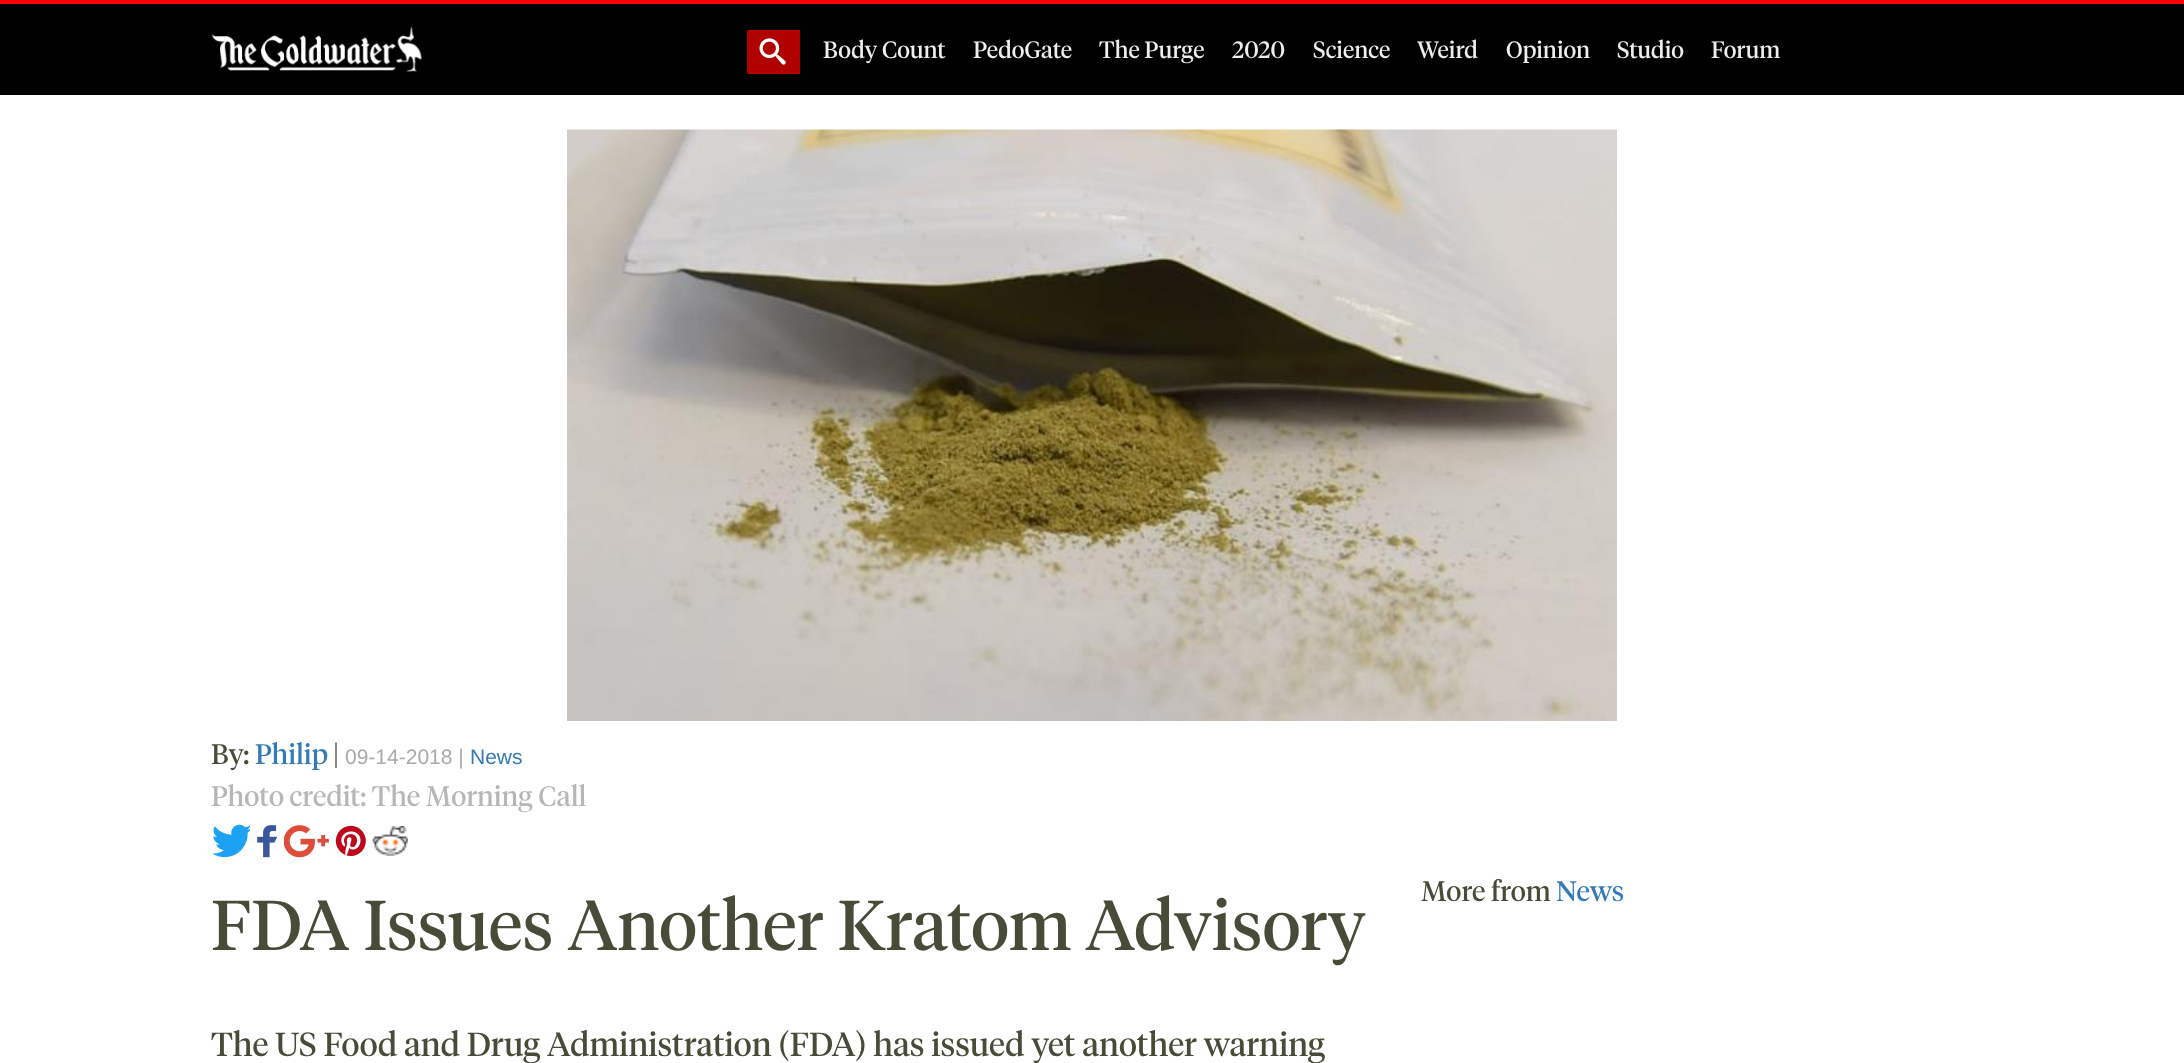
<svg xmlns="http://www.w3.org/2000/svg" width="2184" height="1063">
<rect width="100%" height="100%" fill="#fff"/>
<rect y="4" width="2184" height="91" fill="#000"/>
<rect width="2184" height="4" fill="#f00"/>
<image x="211" y="26" width="211" height="46" href="media/1.png"/>
<rect x="747" y="30" width="53" height="44" fill="#b10000"/>
<image x="759" y="38" width="27" height="27" href="media/2.png"/>
<text x="823" y="58" style="font-family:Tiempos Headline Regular;font-size:23.5px;fill:#eee">Body Count</text>
<text x="973" y="58" style="font-family:Tiempos Headline Regular;font-size:23.5px;fill:#eee">PedoGate</text>
<text x="1099" y="58" style="font-family:Tiempos Headline Regular;font-size:23.5px;fill:#eee">The Purge</text>
<text x="1232" y="58" style="font-family:Tiempos Headline Regular;font-size:23.5px;fill:#eee">2020</text>
<text x="1313" y="58" style="font-family:Tiempos Headline Regular;font-size:23.5px;fill:#eee">Science</text>
<text x="1417" y="58" style="font-family:Tiempos Headline Regular;font-size:23.5px;fill:#eee">Weird</text>
<text x="1506" y="58" style="font-family:Tiempos Headline Regular;font-size:23.5px;fill:#eee">Opinion</text>
<text x="1617" y="58" style="font-family:Tiempos Headline Regular;font-size:23.5px;fill:#eee">Studio</text>
<text x="1711" y="58" style="font-family:Tiempos Headline Regular;font-size:23.5px;fill:#eee">Forum</text>
<image x="567" y="129" width="1050" height="592" href="media/3.png"/>
<text x="211" y="764" style="font-family:Tiempos Headline Regular;font-size:28px;fill:#484b38">By:</text>
<text x="255" y="764" style="font-family:Tiempos Headline Regular;font-size:28px;fill:#337ab7">Philip</text>
<text x="333" y="764" style="font-family:Tiempos Headline Regular;font-size:28px;fill:#484b38">|</text>
<text x="345" y="764" style="font-family:Liberation Sans;font-size:21px;fill:#aaa">09-14-2018 |</text>
<text x="470" y="764" style="font-family:Liberation Sans;font-size:21px;fill:#337ab7">News</text>
<text x="211" y="806" style="font-family:Tiempos Headline Regular;font-size:28px;fill:#b7b7b7">Photo credit: The Morning Call</text>
<image x="212" y="824" width="38" height="34" href="media/4.png"/>
<image x="257" y="825" width="21" height="33" href="media/5.png"/>
<image x="284" y="825" width="45" height="33" href="media/6.png"/>
<image x="335" y="825" width="31" height="32" href="media/7.png"/>
<image x="372" y="826" width="36" height="30" href="media/8.png"/>
<text x="211" y="950" style="font-family:Tiempos Headline Regular;font-size:70px;fill:#484b38">FDA Issues Another Kratom Advisory</text>
<text x="211" y="1056" style="font-family:Tiempos Headline Regular;font-size:33.25px;fill:#484b38">The US Food and Drug Administration (FDA) has issued yet another warning</text>
<text x="1421" y="901" style="font-family:Tiempos Headline Regular;font-size:28px;fill:#484b38">More from</text>
<text x="1556" y="901" style="font-family:Tiempos Headline Regular;font-size:28px;fill:#337ab7">News</text>
</svg>
